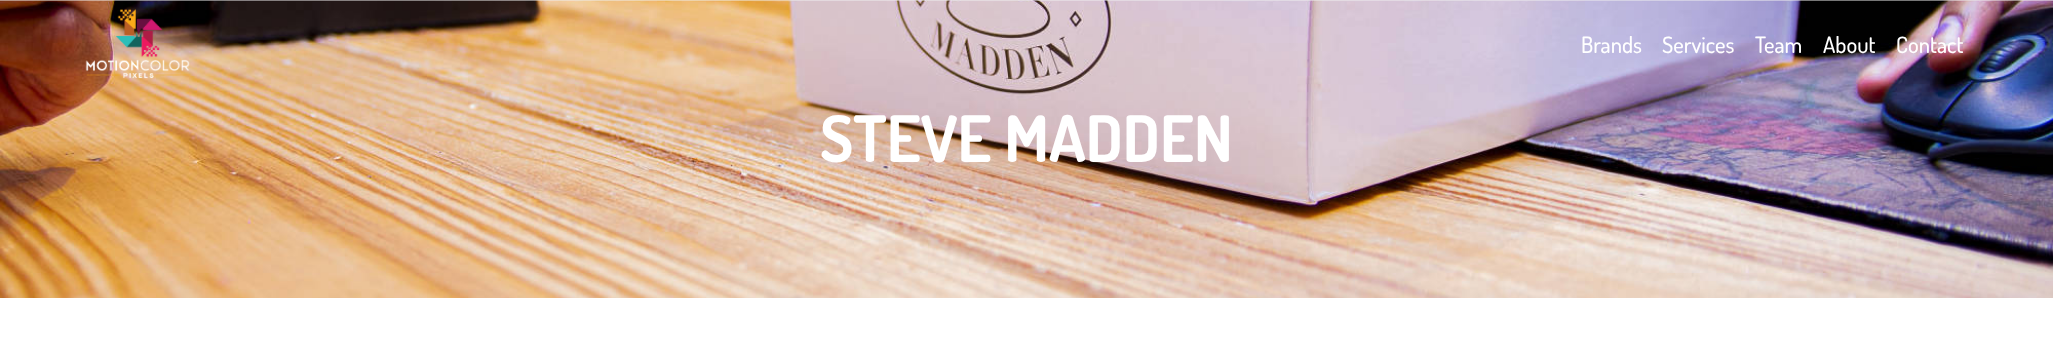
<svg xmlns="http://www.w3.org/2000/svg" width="2053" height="353">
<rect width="100%" height="100%" fill="#eee"/>
<image x="0" y="0" width="2053" height="298" href="media/2.png"/>
<image x="85" y="9" width="105" height="70" href="media/1.png"/>
<text x="1581" y="53" style="font-family:Dosis;font-size:22.5px;font-weight:500;fill:#fff">Brands</text>
<text x="1662" y="53" style="font-family:Dosis;font-size:22.5px;font-weight:500;fill:#fff">Services</text>
<text x="1755" y="53" style="font-family:Dosis;font-size:22.5px;font-weight:500;fill:#fff">Team</text>
<text x="1823" y="53" style="font-family:Dosis;font-size:22.5px;font-weight:500;fill:#fff">About</text>
<text x="1896" y="53" style="font-family:Dosis;font-size:22.5px;font-weight:500;fill:#fff">Contact</text>
<text x="820" y="162" style="font-family:Dosis;font-size:64px;font-weight:bold;fill:#fff">STEVE MADDEN</text>
<rect y="298" width="2053" height="55" fill="#fff"/>
</svg>
